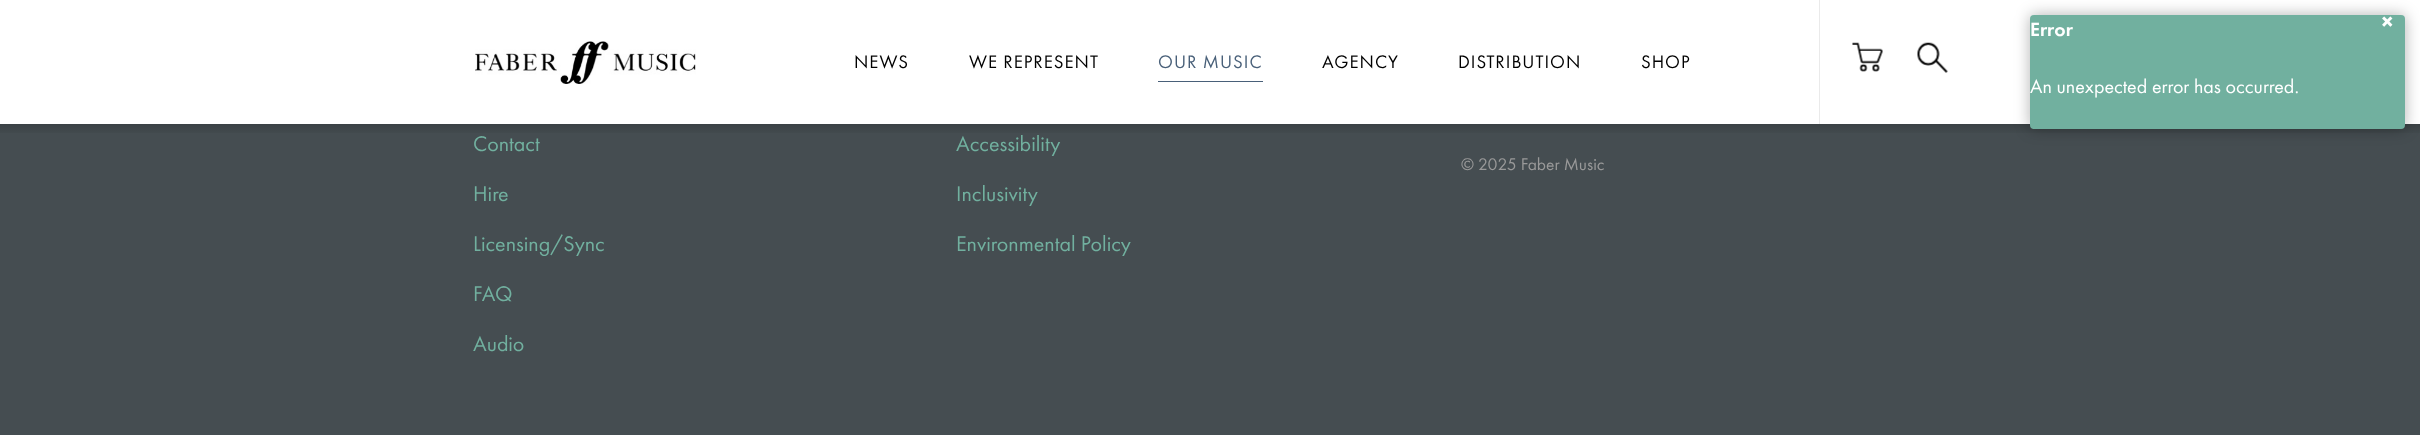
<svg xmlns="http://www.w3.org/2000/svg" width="2420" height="435">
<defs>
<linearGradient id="g1" gradientUnits="userSpaceOnUse" x1="1210" y1="124" x2="1210" y2="136"><stop offset="0" stop-color="#000" stop-opacity="0.15"/><stop offset="1" stop-color="#000" stop-opacity="0"/></linearGradient>
</defs>
<rect width="100%" height="100%" fill="#454d51"/>
<rect width="2420" height="124" fill="#fff"/>
<image x="475" y="41" width="221" height="43" href="media/1.png"/>
<text x="854" y="68" style="font-family:Futura PT;font-size:18.75px;letter-spacing:1px;fill:#000">NEWS</text>
<text x="969" y="68" style="font-family:Futura PT;font-size:18.75px;letter-spacing:1px;fill:#000">WE REPRESENT</text>
<text x="1158" y="68" style="font-family:Futura PT;font-size:18.75px;letter-spacing:1px;fill:#496079">OUR MUSIC</text>
<rect x="1158" y="81" width="105" height="1" fill="#496079"/>
<text x="1322" y="68" style="font-family:Futura PT;font-size:18.75px;letter-spacing:1px;fill:#000">AGENCY</text>
<text x="1458" y="68" style="font-family:Futura PT;font-size:18.75px;letter-spacing:1px;fill:#000">DISTRIBUTION</text>
<text x="1641" y="68" style="font-family:Futura PT;font-size:18.75px;letter-spacing:1px;fill:#000">SHOP</text>
<rect x="1819" width="1" height="124" fill="#eaeaea"/>
<image x="1852" y="42" width="31" height="30" href="media/2.png"/>
<image x="1917" y="42" width="31" height="31" href="media/3.png"/>
<rect y="124" width="2420" height="9" fill="url(#g1)"/>
<text x="473" y="151" style="font-family:Futura PT;font-size:22px;fill:#71b09f">Contact</text>
<text x="956" y="151" style="font-family:Futura PT;font-size:22px;fill:#71b09f">Accessibility</text>
<text x="473" y="201" style="font-family:Futura PT;font-size:22px;fill:#71b09f">Hire</text>
<text x="956" y="201" style="font-family:Futura PT;font-size:22px;fill:#71b09f">Inclusivity</text>
<text x="473" y="251" style="font-family:Futura PT;font-size:22px;fill:#71b09f">Licensing/Sync</text>
<text x="956" y="251" style="font-family:Futura PT;font-size:22px;fill:#71b09f">Environmental Policy</text>
<text x="473" y="301" style="font-family:Futura PT;font-size:22px;fill:#71b09f">FAQ</text>
<text x="473" y="351" style="font-family:Futura PT;font-size:22px;fill:#71b09f">Audio</text>
<text x="1461" y="170" style="font-family:Futura PT;font-size:17.5px;fill:#999">© 2025 Faber Music</text>
<rect x="2030" y="15" width="375" height="114" rx="4" fill="#0000004d" filter="blur(7.5px)"/>
<rect x="2030" y="15" width="375" height="114" rx="4" fill="#71b09f"/>
<text x="2030" y="36" style="font-family:Futura PT;font-size:20px;font-weight:500;fill:#fff">Error</text>
<text x="2381" y="30" style="font-family:Futura PT;font-size:25px;font-weight:500;fill:#fff">×</text>
<text x="2030" y="93" style="font-family:Futura PT;font-size:20px;fill:#fff">An unexpected error has occurred.</text>
</svg>
